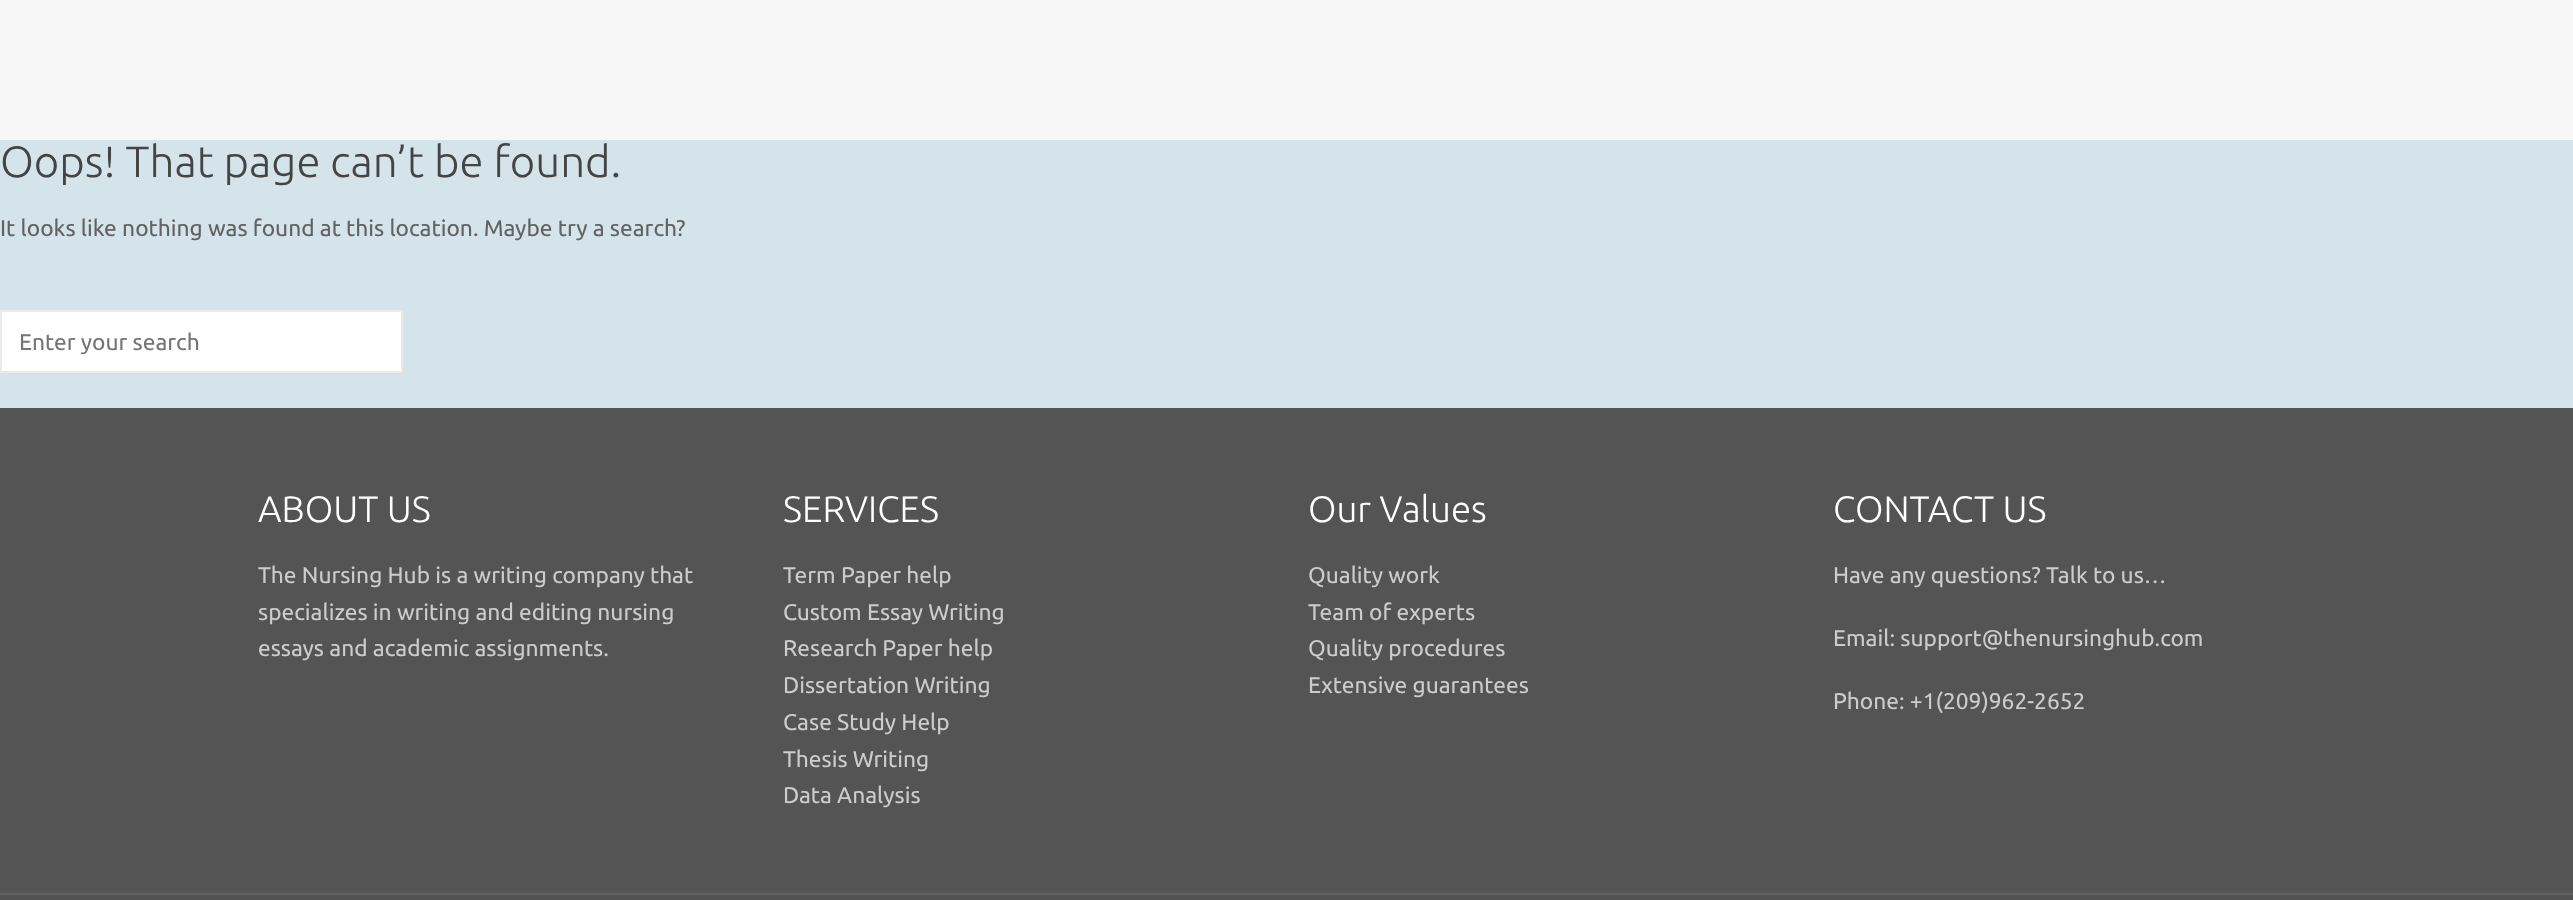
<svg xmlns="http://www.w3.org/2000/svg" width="2573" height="900">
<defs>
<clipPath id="clip1"><rect x="19" y="329" width="364" height="25"/></clipPath>
</defs>
<rect width="100%" height="100%" fill="#d5e4ea"/>
<rect width="2573" height="140" fill="#f7f7f7"/>
<text x="0" y="177" style="font-family:Ubuntu;font-size:43.75px;font-weight:300;fill:#444">Oops! That page can’t be found.</text>
<text x="0" y="236" style="font-family:Ubuntu;font-size:22.75px;fill:#626262">It looks like nothing was found at this location. Maybe try a search?</text>
<rect x="1" y="311" width="401" height="61" fill="#fff" stroke="#ebebeb" stroke-width="2"/>
<g clip-path="url(#clip1)">
<text x="19" y="350" style="font-family:Ubuntu;font-size:22.75px;fill:#757575">Enter your search</text>
</g>
<rect y="408" width="2573" height="485" fill="#545454"/>
<text x="258" y="522" style="font-family:Ubuntu;font-size:36.75px;font-weight:300;fill:#fff">ABOUT US</text>
<text x="258" y="583" style="font-family:Ubuntu;font-size:22.75px;fill:#ccc">The Nursing Hub is a writing company that</text>
<text x="258" y="620" style="font-family:Ubuntu;font-size:22.75px;fill:#ccc">specializes in writing and editing nursing</text>
<text x="258" y="656" style="font-family:Ubuntu;font-size:22.75px;fill:#ccc">essays and academic assignments.</text>
<text x="783" y="522" style="font-family:Ubuntu;font-size:36.75px;font-weight:300;fill:#fff">SERVICES</text>
<text x="783" y="583" style="font-family:Ubuntu;font-size:22.75px;fill:#ccc">Term Paper help</text>
<text x="783" y="620" style="font-family:Ubuntu;font-size:22.75px;fill:#ccc">Custom Essay Writing</text>
<text x="783" y="656" style="font-family:Ubuntu;font-size:22.75px;fill:#ccc">Research Paper help</text>
<text x="783" y="693" style="font-family:Ubuntu;font-size:22.75px;fill:#ccc">Dissertation Writing</text>
<text x="783" y="730" style="font-family:Ubuntu;font-size:22.75px;fill:#ccc">Case Study Help</text>
<text x="783" y="767" style="font-family:Ubuntu;font-size:22.75px;fill:#ccc">Thesis Writing</text>
<text x="783" y="803" style="font-family:Ubuntu;font-size:22.75px;fill:#ccc">Data Analysis</text>
<text x="1308" y="522" style="font-family:Ubuntu;font-size:36.75px;font-weight:300;fill:#fff">Our Values</text>
<text x="1308" y="583" style="font-family:Ubuntu;font-size:22.75px;fill:#ccc">Quality work</text>
<text x="1308" y="620" style="font-family:Ubuntu;font-size:22.75px;fill:#ccc">Team of experts</text>
<text x="1308" y="656" style="font-family:Ubuntu;font-size:22.75px;fill:#ccc">Quality procedures</text>
<text x="1308" y="693" style="font-family:Ubuntu;font-size:22.75px;fill:#ccc">Extensive guarantees</text>
<text x="1833" y="522" style="font-family:Ubuntu;font-size:36.75px;font-weight:300;fill:#fff">CONTACT US</text>
<text x="1833" y="583" style="font-family:Ubuntu;font-size:22.75px;fill:#ccc">Have any questions? Talk to us…</text>
<text x="1833" y="646" style="font-family:Ubuntu;font-size:22.75px;fill:#ccc">Email: support@thenursinghub.com</text>
<text x="1833" y="709" style="font-family:Ubuntu;font-size:22.75px;fill:#ccc">Phone: +1(209)962-2652</text>
<rect y="895" width="2573" height="5" fill="#515151"/>
<rect y="893" width="2573" height="2" fill="#626262"/>
</svg>
